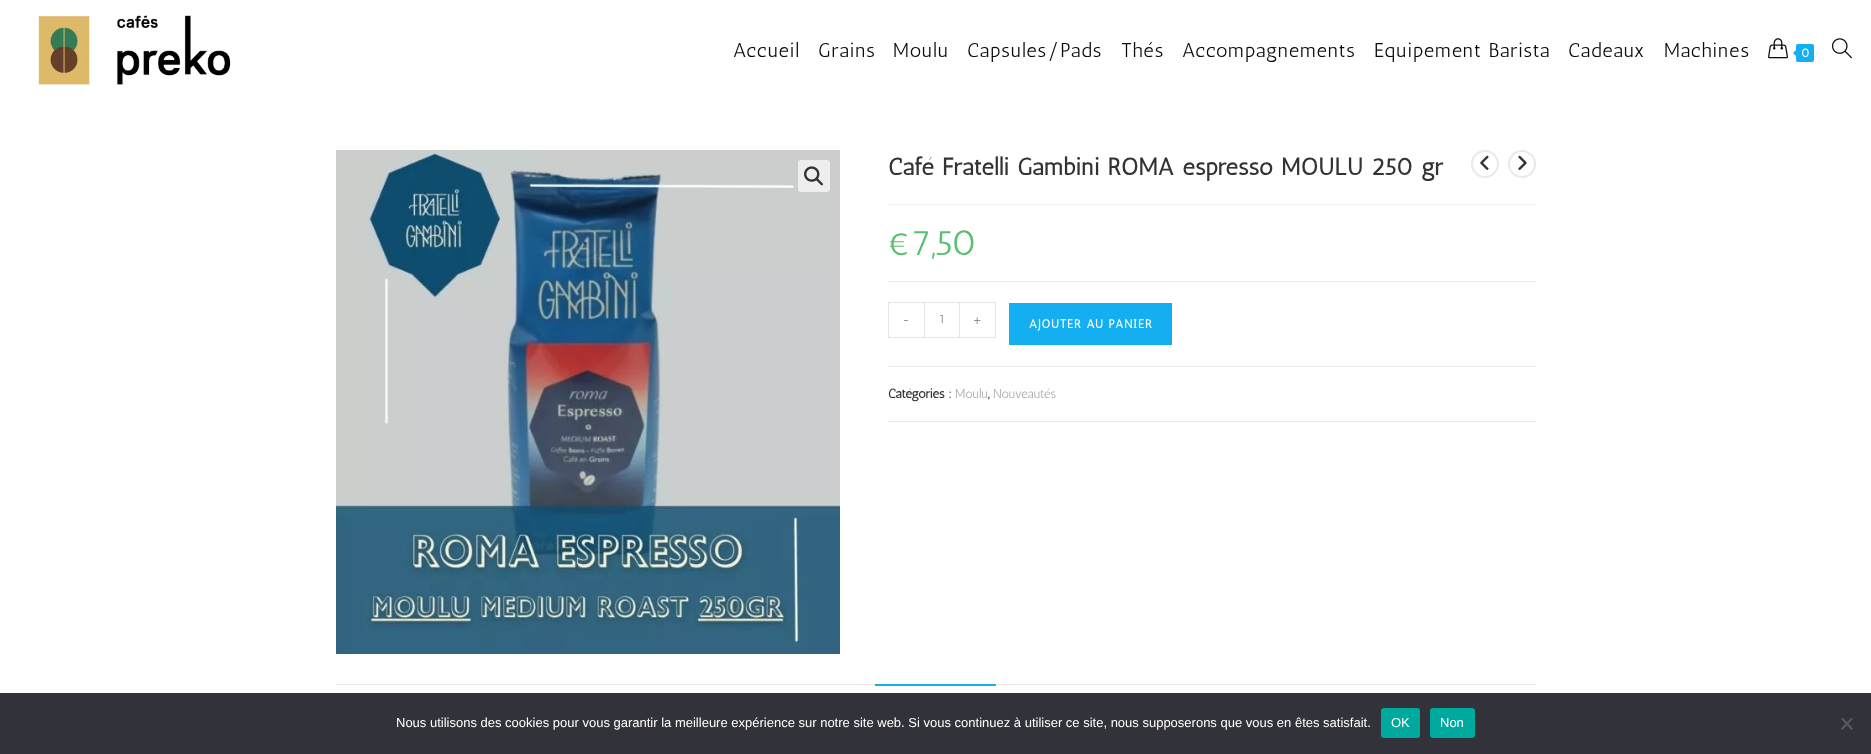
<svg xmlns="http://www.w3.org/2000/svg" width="1871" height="754">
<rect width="100%" height="100%" fill="#fff"/>
<image x="38" y="15" width="193" height="70" href="media/1.png"/>
<text x="733" y="57" style="font-family:Antic;font-size:20px;letter-spacing:1.1px;fill:#0a0a0a">Accueil</text>
<text x="818" y="57" style="font-family:Antic;font-size:20px;letter-spacing:1.1px;fill:#0a0a0a">Grains</text>
<text x="893" y="57" style="font-family:Antic;font-size:20px;letter-spacing:1.1px;fill:#0a0a0a">Moulu</text>
<text x="967" y="57" style="font-family:Antic;font-size:20px;letter-spacing:1.1px;fill:#0a0a0a">Capsules/Pads</text>
<text x="1121" y="57" style="font-family:Antic;font-size:20px;letter-spacing:1.1px;fill:#0a0a0a">Thés</text>
<text x="1182" y="57" style="font-family:Antic;font-size:20px;letter-spacing:1.1px;fill:#0a0a0a">Accompagnements</text>
<text x="1374" y="57" style="font-family:Antic;font-size:20px;letter-spacing:1.1px;fill:#0a0a0a">Equipement Barista</text>
<text x="1568" y="57" style="font-family:Antic;font-size:20px;letter-spacing:1.1px;fill:#0a0a0a">Cadeaux</text>
<text x="1664" y="57" style="font-family:Antic;font-size:20px;letter-spacing:1.1px;fill:#0a0a0a">Machines</text>
<image x="1768" y="38" width="20" height="21" href="media/2.png"/>
<rect x="1796" y="44" width="18" height="18" rx="2" fill="#13aff0"/>
<path d="M1798 48v10l-5-5z" fill="#13aff0"/>
<text x="1801" y="57" style="font-family:Antic;font-size:12px;font-weight:bold;fill:#fff">0</text>
<image x="1832" y="38" width="20" height="21" href="media/3.png"/>
<image x="336" y="150" width="504" height="504" href="media/4.png"/>
<rect x="798" y="160" width="32" height="32" rx="3" fill="#eee"/>
<image x="804" y="166" width="19" height="20" href="media/5.png"/>
<rect x="888" y="204" width="648" height="1" fill="#f1f1f1"/>
<text x="888" y="175" style="font-family:Antic;font-size:24px;font-weight:bold;letter-spacing:0.6px;fill:#333">Café Fratelli Gambini ROMA espresso MOULU 250 gr</text>
<text x="888" y="255" style="font-family:Antic;font-size:36px;fill:#57bf6d">€7,50</text>
<rect x="888" y="281" width="648" height="1" fill="#eaeaea"/>
<rect x="888" y="366" width="648" height="1" fill="#eaeaea"/>
<rect x="888" y="302" width="36" height="1" fill="#e4e4e4"/>
<rect x="888" y="337" width="36" height="1" fill="#e4e4e4"/>
<rect x="888" y="302" width="1" height="36" fill="#e4e4e4"/>
<text x="902" y="324" style="font-family:Antic;font-size:13px;fill:#777">-</text>
<rect x="924.5" y="302.5" width="35" height="35" fill="none" stroke="#e4e4e4"/>
<text x="939" y="323" style="font-family:Antic;font-size:12px;fill:#777">1</text>
<rect x="960" y="302" width="36" height="1" fill="#e4e4e4"/>
<rect x="995" y="302" width="1" height="36" fill="#e4e4e4"/>
<rect x="960" y="337" width="36" height="1" fill="#e4e4e4"/>
<text x="972" y="324" style="font-family:Antic;font-size:13px;fill:#777">+</text>
<rect x="1009" y="303" width="163" height="42" fill="#13aff0"/>
<text x="1029" y="328" style="font-family:Antic;font-size:12px;font-weight:bold;letter-spacing:1px;fill:#fff">AJOUTER AU PANIER</text>
<rect x="888" y="421" width="648" height="1" fill="#eaeaea"/>
<text x="888" y="398" style="font-family:Antic;font-size:13px;font-weight:bold;fill:#333">Catégories :</text>
<text x="955" y="398" style="font-family:Antic;font-size:13px;fill:#ababab">Moulu</text>
<text x="988" y="398" style="font-family:Antic;font-size:13px;font-weight:bold;fill:#333">,</text>
<text x="993" y="398" style="font-family:Antic;font-size:13px;fill:#ababab">Nouveautés</text>
<circle cx="1485" cy="164" r="13" fill="none" stroke="#e9e9e9" stroke-width="2"/>
<image x="1480" y="155" width="9" height="15" href="media/6.png"/>
<circle cx="1522" cy="164" r="13" fill="none" stroke="#e9e9e9" stroke-width="2"/>
<image x="1518" y="155" width="9" height="15" href="media/7.png"/>
<rect x="336" y="684" width="1200" height="1" fill="#eaeaea"/>
<rect x="875" y="684" width="121" height="2" fill="#13aff0"/>
<rect y="693" width="1871" height="61" fill="#32323a"/>
<text x="396" y="727" style="font-family:Liberation Sans;font-size:13px;fill:#fff">Nous utilisons des cookies pour vous garantir la meilleure expérience sur notre site web. Si vous continuez à utiliser ce site, nous supposerons que vous en êtes satisfait.</text>
<rect x="1381" y="708" width="39" height="30" rx="3" fill="#00a99d"/>
<text x="1391" y="727" style="font-family:Liberation Sans;font-size:13px;fill:#fff">OK</text>
<rect x="1430" y="708" width="45" height="30" rx="3" fill="#00a99d"/>
<text x="1440" y="727" style="font-family:Liberation Sans;font-size:13px;fill:#fff">Non</text>
<path d="M1851.5 717.5l1.5 1.5l-10.5 11l-1.5-1.5z" fill="#59595d"/>
<path d="M1841 719l1.5-1.5l10.5 11l-1.5 1.5z" fill="#59595d"/>
</svg>
